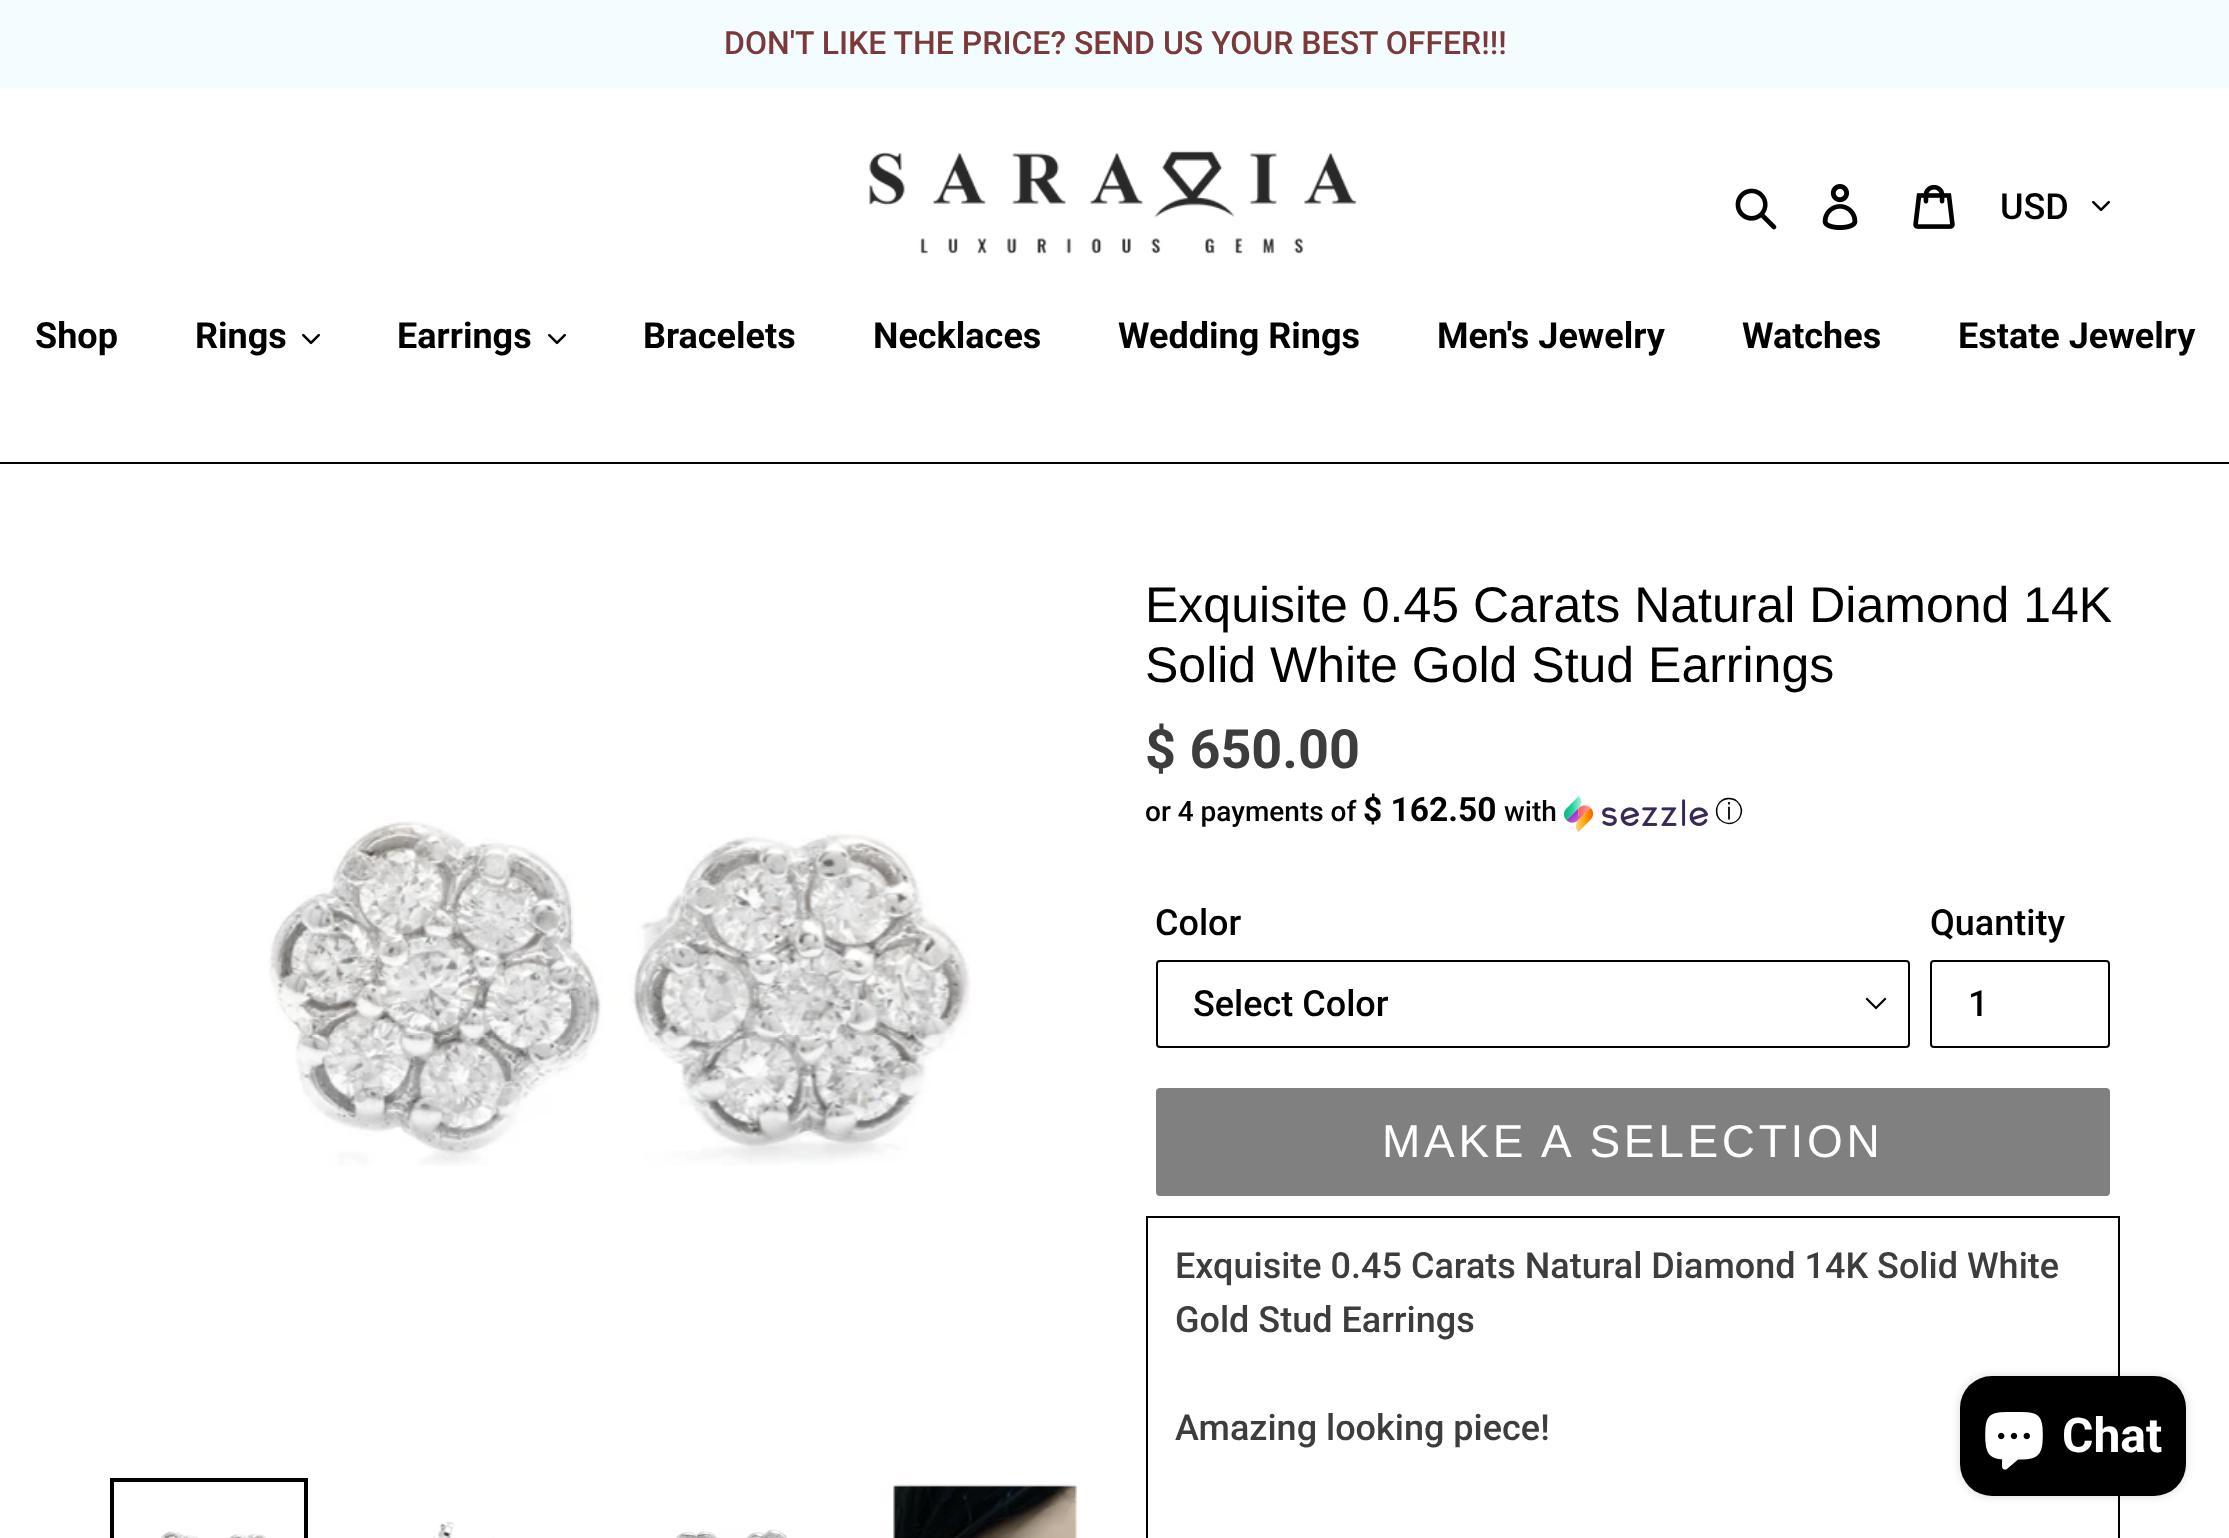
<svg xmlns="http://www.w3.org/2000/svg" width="2229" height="1538">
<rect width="100%" height="100%" fill="#fff"/>
<rect width="2229" height="88" fill="#f3fdff"/>
<text x="724" y="54" style="font-family:Roboto;font-size:32px;font-weight:500;fill:#7b3939">DON'T LIKE THE PRICE? SEND US YOUR BEST OFFER!!!</text>
<image x="869" y="150" width="488" height="104" href="media/1.png"/>
<image x="1735" y="188" width="42" height="42" href="media/2.png"/>
<image x="1822" y="184" width="36" height="46" href="media/3.png"/>
<image x="1913" y="184" width="42" height="45" href="media/4.png"/>
<text x="2000" y="219" style="font-family:Roboto;font-size:36px;font-weight:500;fill:#000">USD</text>
<image x="2092" y="200" width="18" height="12" href="media/5.png"/>
<rect y="462" width="2229" height="2" fill="#000"/>
<text x="35" y="348" style="font-family:Roboto;font-size:36px;font-weight:bold;fill:#000">Shop</text>
<text x="195" y="348" style="font-family:Roboto;font-size:36px;font-weight:bold;fill:#000">Rings</text>
<image x="302" y="333" width="18" height="12" href="media/5.png"/>
<text x="397" y="348" style="font-family:Roboto;font-size:36px;font-weight:bold;fill:#000">Earrings</text>
<image x="548" y="333" width="18" height="12" href="media/5.png"/>
<text x="643" y="348" style="font-family:Roboto;font-size:36px;font-weight:bold;fill:#000">Bracelets</text>
<text x="873" y="348" style="font-family:Roboto;font-size:36px;font-weight:bold;fill:#000">Necklaces</text>
<text x="1118" y="348" style="font-family:Roboto;font-size:36px;font-weight:bold;fill:#000">Wedding Rings</text>
<text x="1437" y="348" style="font-family:Roboto;font-size:36px;font-weight:bold;fill:#000">Men's Jewelry</text>
<text x="1742" y="348" style="font-family:Roboto;font-size:36px;font-weight:bold;fill:#000">Watches</text>
<text x="1958" y="348" style="font-family:Roboto;font-size:36px;font-weight:bold;fill:#000">Estate Jewelry</text>
<image x="268" y="821" width="703" height="345" href="media/6.png"/>
<rect x="112" y="1480" width="194" height="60" fill="none" stroke="#000" stroke-width="4"/>
<image x="160" y="1531" width="106" height="7" href="media/7.png"/>
<image x="433" y="1521" width="61" height="17" href="media/8.png"/>
<image x="676" y="1529" width="112" height="9" href="media/9.png"/>
<image x="893" y="1484" width="185" height="54" href="media/10.png"/>
<text x="1145" y="622" style="font-family:Arimo;font-size:50px;fill:#000">Exquisite 0.45 Carats Natural Diamond 14K</text>
<text x="1145" y="682" style="font-family:Arimo;font-size:50px;fill:#000">Solid White Gold Stud Earrings</text>
<text x="1145" y="768" style="font-family:Roboto;font-size:54px;font-weight:bold;fill:#3d3d3d">$ 650.00</text>
<text x="1145" y="821" style="font-family:Roboto;font-size:28px;font-weight:500;fill:#000">or 4 payments of</text>
<text x="1363" y="821" style="font-family:Roboto;font-size:33.5px;font-weight:bold;fill:#000">$ 162.50</text>
<text x="1504" y="821" style="font-family:Roboto;font-size:28px;font-weight:500;fill:#000">with</text>
<image x="1564" y="796" width="144" height="36" href="media/11.png"/>
<text x="1715" y="821" style="font-family:WenQuanYi Zen Hei;font-size:28px;font-weight:500;fill:#000">ⓘ</text>
<text x="1155" y="935" style="font-family:Roboto;font-size:36px;font-weight:500;fill:#000">Color</text>
<path d="M1876 1009.5l-10.5-10.5l1.5-1.5l9 9l9-9l1.5 1.5z" fill="#000"/>
<rect x="1157" y="961" width="752" height="86" rx="3" fill="none" stroke="#000" stroke-width="2"/>
<text x="1193" y="1016" style="font-family:Roboto;font-size:36px;font-weight:500;fill:#000">Select Color</text>
<text x="1930" y="935" style="font-family:Roboto;font-size:36px;font-weight:500;fill:#000">Quantity</text>
<rect x="1931" y="961" width="178" height="86" rx="3" fill="none" stroke="#000" stroke-width="2"/>
<text x="1968" y="1016" style="font-family:Roboto;font-size:36px;font-weight:500;fill:#000">1</text>
<rect x="1157" y="1089" width="952" height="106" rx="3" fill="#808080" stroke="#808080" stroke-width="2"/>
<text x="1382" y="1157" style="font-family:Arimo;font-size:46px;letter-spacing:3.7px;fill:#fff">MAKE A SELECTION</text>
<rect x="1146" y="1216" width="974" height="2" fill="#000"/>
<rect x="2118" y="1216" width="2" height="322" fill="#000"/>
<rect x="1146" y="1216" width="2" height="322" fill="#000"/>
<text x="1175" y="1278" style="font-family:Roboto;font-size:36px;font-weight:500;fill:#3d3d3d">Exquisite 0.45 Carats Natural Diamond 14K Solid White</text>
<text x="1175" y="1332" style="font-family:Roboto;font-size:36px;font-weight:500;fill:#3d3d3d">Gold Stud Earrings</text>
<text x="1175" y="1440" style="font-family:Roboto;font-size:36px;font-weight:500;fill:#3d3d3d">Amazing looking piece!</text>
<rect x="1960" y="1376" width="226" height="120" rx="32" fill="#00000026" filter="blur(5px)"/>
<rect x="1960" y="1376" width="226" height="120" rx="32" fill="#000"/>
<image x="1985" y="1412" width="58" height="58" href="media/12.png"/>
<text x="2062" y="1452" style="font-family:Roboto;font-size:48px;font-weight:bold;fill:#fff">Chat</text>
</svg>
